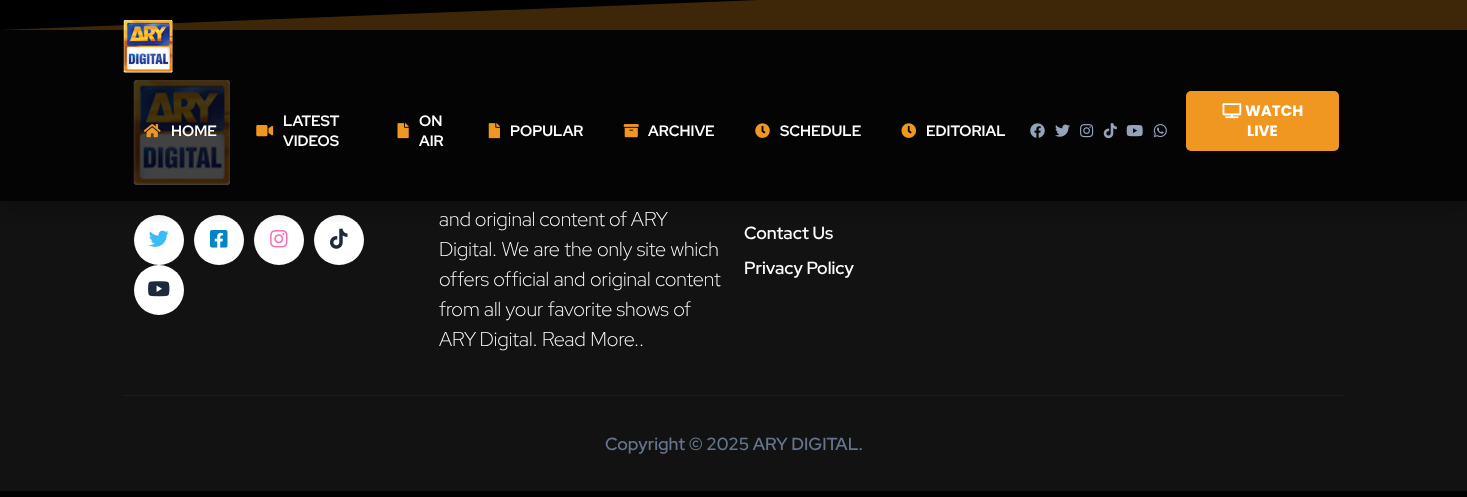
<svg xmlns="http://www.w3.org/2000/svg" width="1467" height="497">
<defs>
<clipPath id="clip1"><rect x="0" y="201" width="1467" height="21"/></clipPath>
</defs>
<rect width="100%" height="100%" fill="#000"/>
<rect y="30" width="1467" height="461" fill="#121212"/>
<path d="M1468-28v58h-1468z" fill="#f09721"/>
<image x="133" y="80" width="97" height="105" href="media/16.png"/>
<circle cx="159" cy="240" r="25" fill="#fff"/>
<image x="149" y="230" width="20" height="17" href="media/17.png"/>
<circle cx="219" cy="240" r="25" fill="#fff"/>
<image x="210" y="230" width="18" height="18" href="media/18.png"/>
<circle cx="279" cy="240" r="25" fill="#fff"/>
<image x="270" y="230" width="18" height="18" href="media/19.png"/>
<circle cx="339" cy="240" r="25" fill="#fff"/>
<image x="330" y="228" width="18" height="21" href="media/20.png"/>
<g clip-path="url(#clip1)">
<rect y="10" width="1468" height="201" fill="#00000026" filter="blur(10px)"/>
</g>
<rect width="1467" height="201" fill="#000000bd"/>
<image x="123" y="20" width="50" height="53" href="media/1.png"/>
<image x="143" y="124" width="18" height="14" href="media/2.png"/>
<text x="171" y="136" style="font-family:Red Hat Display;font-size:15px;font-weight:bold;fill:#fff">HOME</text>
<text x="283" y="126" style="font-family:Red Hat Display;font-size:15px;font-weight:bold;fill:#fff">LATEST</text>
<image x="256" y="125" width="18" height="12" href="media/3.png"/>
<text x="283" y="146" style="font-family:Red Hat Display;font-size:15px;font-weight:bold;fill:#fff">VIDEOS</text>
<text x="419" y="126" style="font-family:Red Hat Display;font-size:15px;font-weight:bold;fill:#fff">ON</text>
<image x="397" y="123" width="12" height="16" href="media/4.png"/>
<text x="419" y="146" style="font-family:Red Hat Display;font-size:15px;font-weight:bold;fill:#fff">AIR</text>
<image x="488" y="123" width="12" height="16" href="media/5.png"/>
<text x="510" y="136" style="font-family:Red Hat Display;font-size:15px;font-weight:bold;fill:#fff">POPULAR</text>
<image x="623" y="124" width="16" height="14" href="media/6.png"/>
<text x="648" y="136" style="font-family:Red Hat Display;font-size:15px;font-weight:bold;fill:#fff">ARCHIVE</text>
<image x="755" y="123" width="15" height="15" href="media/7.png"/>
<text x="780" y="136" style="font-family:Red Hat Display;font-size:15px;font-weight:bold;fill:#fff">SCHEDULE</text>
<image x="901" y="123" width="15" height="15" href="media/8.png"/>
<text x="926" y="136" style="font-family:Red Hat Display;font-size:15px;font-weight:bold;fill:#fff">EDITORIAL</text>
<image x="1030" y="123" width="15" height="15" href="media/9.png"/>
<image x="1055" y="124" width="15" height="13" href="media/10.png"/>
<image x="1080" y="124" width="14" height="14" href="media/11.png"/>
<image x="1103" y="123" width="14" height="16" href="media/12.png"/>
<image x="1126" y="125" width="17" height="12" href="media/13.png"/>
<image x="1153" y="124" width="14" height="14" href="media/14.png"/>
<rect x="1186" y="91" width="153" height="60" rx="5" fill="#f09721"/>
<image x="1222" y="103" width="20" height="16" href="media/15.png"/>
<text x="1245" y="116" style="font-family:Poppins;font-size:15px;font-weight:bold;fill:#fff">WATCH</text>
<text x="1247" y="136" style="font-family:Poppins;font-size:15px;font-weight:bold;fill:#fff">LIVE</text>
<circle cx="159" cy="290" r="25" fill="#fff"/>
<image x="148" y="281" width="22" height="16" href="media/21.png"/>
<text x="439" y="226" word-spacing="-0.5" style="font-family:Red Hat Display;font-size:20px;font-weight:300;fill:#fff">and original content of ARY</text>
<text x="439" y="256" style="font-family:Red Hat Display;font-size:20px;font-weight:300;fill:#fff">Digital. We are the only site which</text>
<text x="439" y="286" style="font-family:Red Hat Display;font-size:20px;font-weight:300;fill:#fff">offers official and original content</text>
<text x="439" y="316" style="font-family:Red Hat Display;font-size:20px;font-weight:300;fill:#fff">from all your favorite shows of</text>
<text x="439" y="346" style="font-family:Red Hat Display;font-size:20px;font-weight:300;fill:#fff">ARY Digital. Read More..</text>
<text x="744" y="239" style="font-family:Red Hat Display;font-size:17.5px;font-weight:600;fill:#fff">Contact Us</text>
<text x="744" y="274" style="font-family:Red Hat Display;font-size:17.5px;font-weight:600;fill:#fff">Privacy Policy</text>
<rect x="124" y="395" width="1220" height="1" fill="#1a1e23"/>
<text x="605" y="450" style="font-family:Red Hat Display;font-size:17.5px;font-weight:600;fill:#64748b">Copyright © 2025 ARY DIGITAL.</text>
</svg>
